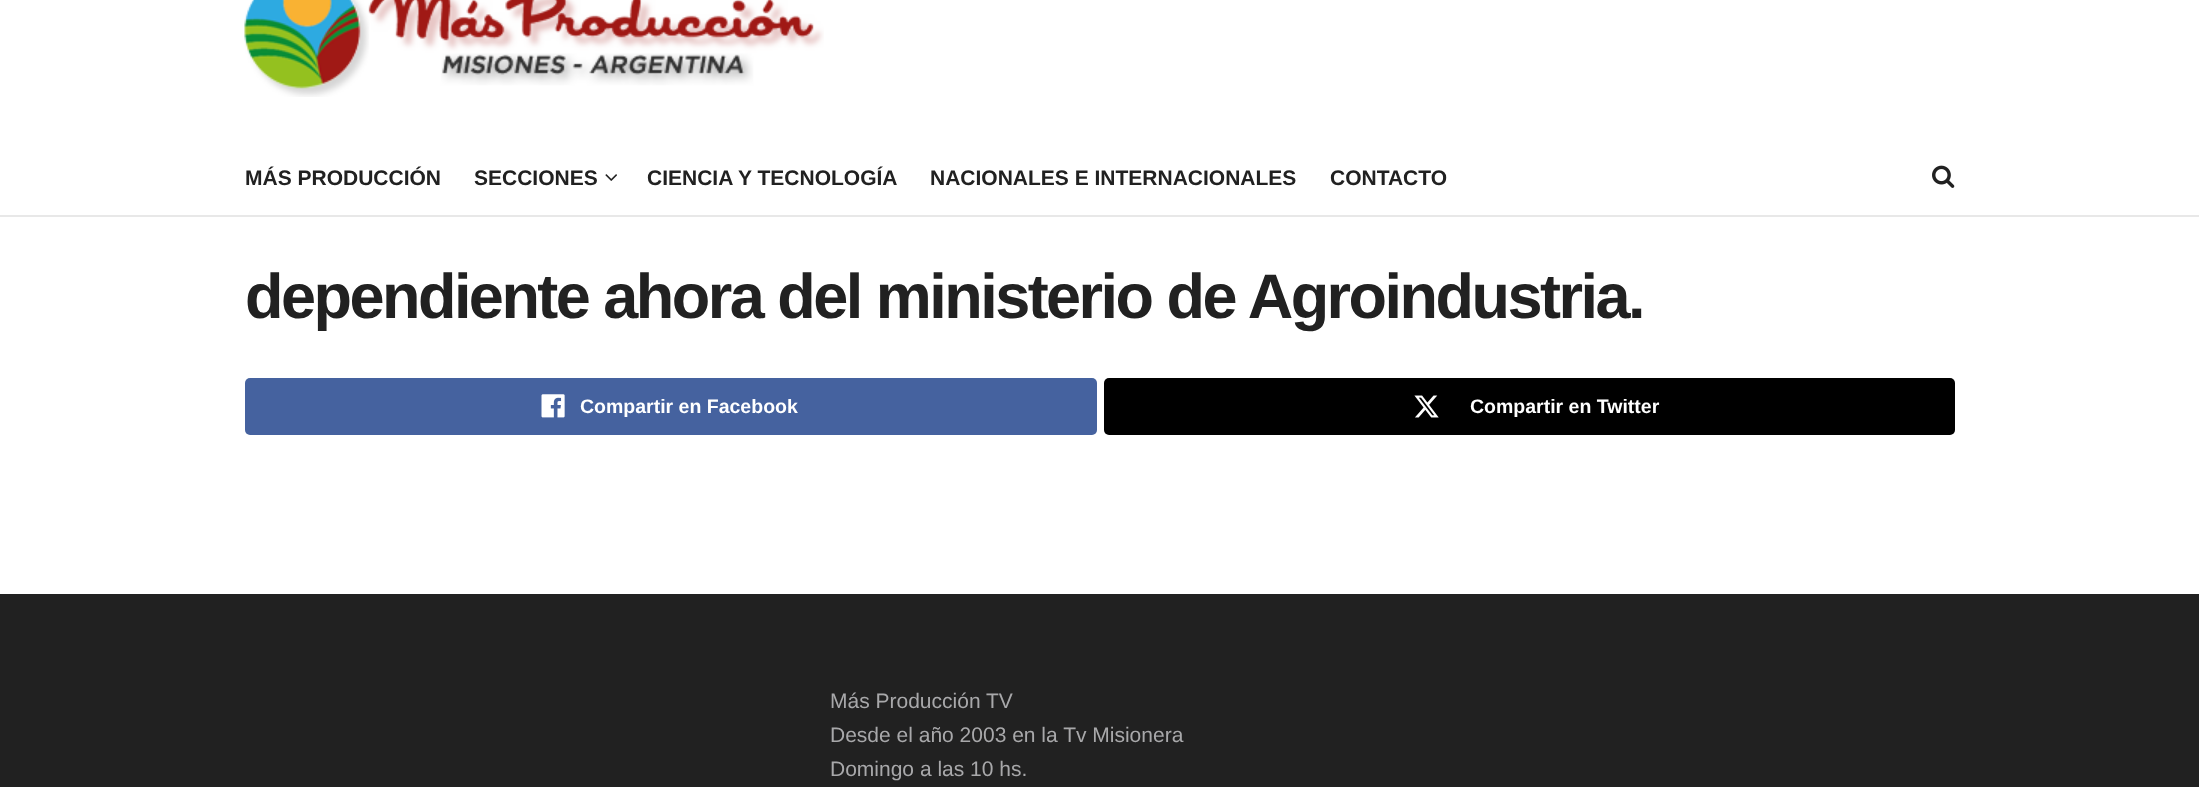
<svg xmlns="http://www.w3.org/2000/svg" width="2199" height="787">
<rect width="100%" height="100%" fill="#fff"/>
<image x="244" y="0" width="580" height="97" href="media/1.png"/>
<rect y="215" width="2199" height="2" fill="#e8e8e8"/>
<text x="245" y="185" style="font-family:Liberation Sans;font-size:21px;font-weight:bold;fill:#212121">MÁS PRODUCCIÓN</text>
<text x="474" y="185" style="font-family:Liberation Sans;font-size:21px;font-weight:bold;fill:#212121">SECCIONES</text>
<image x="605" y="174" width="12" height="7" href="media/2.png"/>
<text x="647" y="185" style="font-family:Liberation Sans;font-size:21px;font-weight:bold;fill:#212121">CIENCIA Y TECNOLOGÍA</text>
<text x="930" y="185" style="font-family:Liberation Sans;font-size:21px;font-weight:bold;fill:#212121">NACIONALES E INTERNACIONALES</text>
<text x="1330" y="185" style="font-family:Liberation Sans;font-size:21px;font-weight:bold;fill:#212121">CONTACTO</text>
<image x="1932" y="165" width="23" height="23" href="media/3.png"/>
<text x="245" y="318" style="font-family:Liberation Sans;font-size:63px;font-weight:bold;letter-spacing:-2.52px;fill:#212121">dependiente ahora del ministerio de Agroindustria.</text>
<rect x="245" y="378" width="852" height="57" rx="5" fill="#45629f"/>
<image x="541" y="394" width="24" height="24" href="media/4.png"/>
<text x="580" y="413" style="font-family:Liberation Sans;font-size:19.5px;font-weight:bold;fill:#fff">Compartir en Facebook</text>
<rect x="1104" y="378" width="851" height="57" rx="5" fill="#000"/>
<image x="1414" y="395" width="25" height="23" href="media/5.png"/>
<text x="1470" y="413" style="font-family:Liberation Sans;font-size:19.5px;font-weight:bold;fill:#fff">Compartir en Twitter</text>
<rect y="594" width="2199" height="193" fill="#212121"/>
<text x="830" y="708" style="font-family:Liberation Sans;font-size:21px;fill:#a8a8aa">Más Producción TV</text>
<text x="830" y="742" style="font-family:Liberation Sans;font-size:21px;fill:#a8a8aa">Desde el año 2003 en la Tv Misionera</text>
<text x="830" y="776" style="font-family:Liberation Sans;font-size:21px;fill:#a8a8aa">Domingo a las 10 hs.</text>
</svg>
